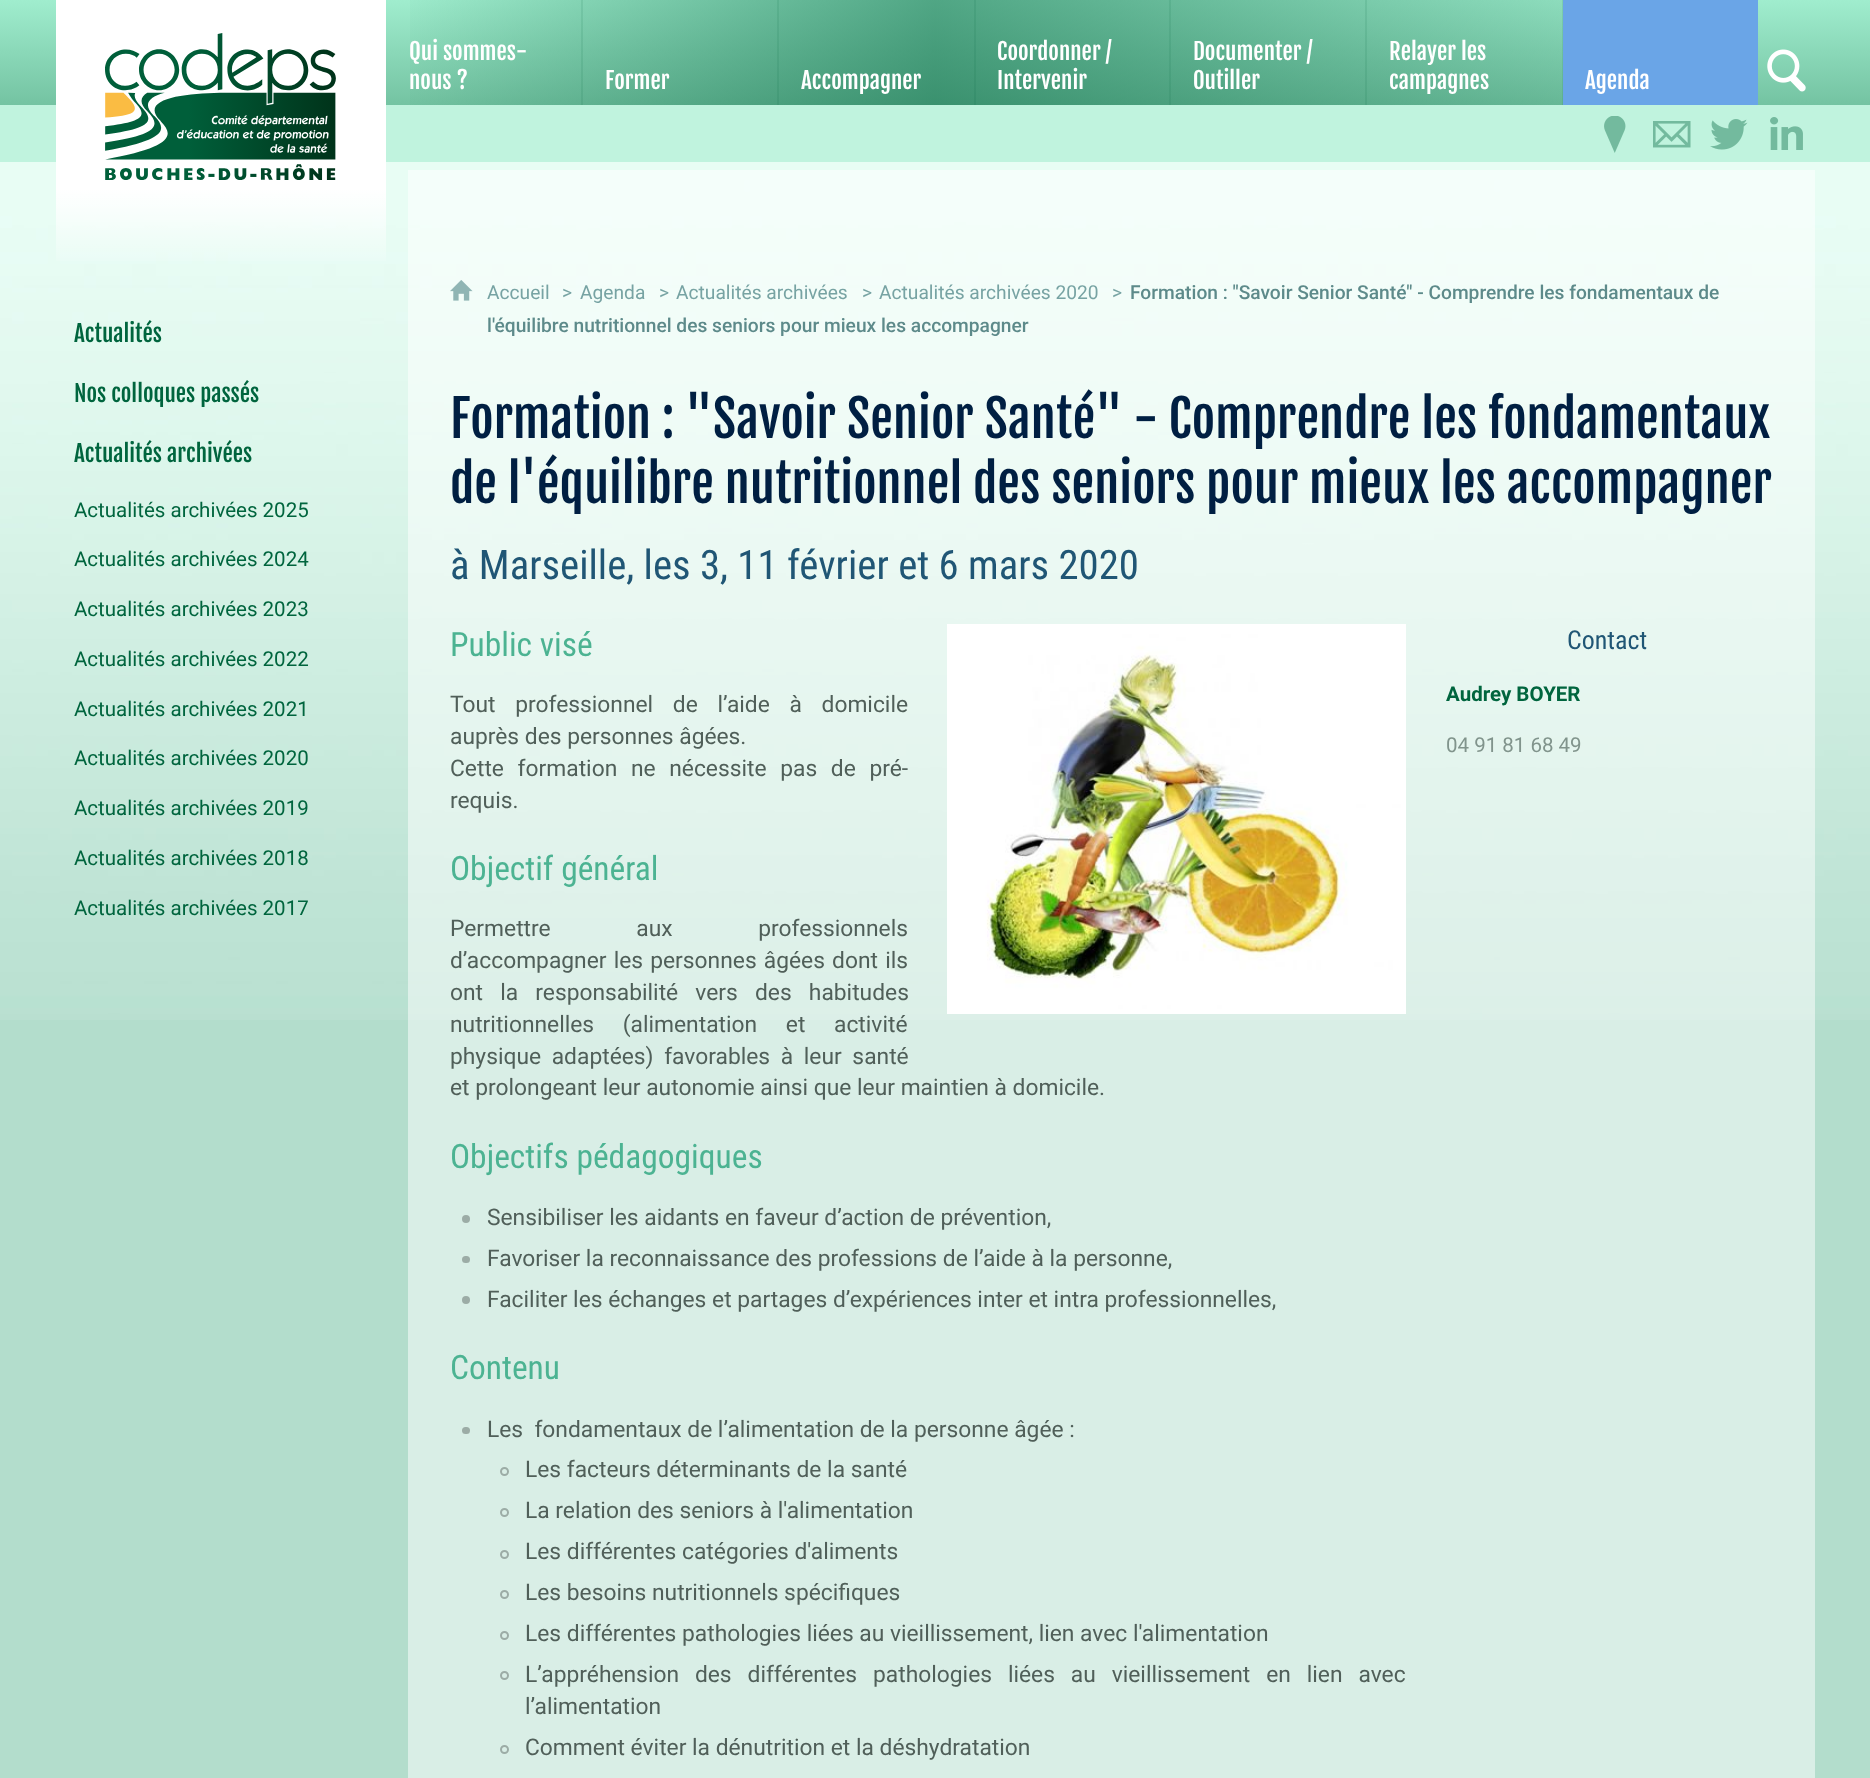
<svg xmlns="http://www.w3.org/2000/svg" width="1870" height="1778">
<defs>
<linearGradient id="g1" gradientUnits="userSpaceOnUse" x1="935" y1="0" x2="935" y2="105"><stop offset="0" stop-color="#a0edce"/><stop offset="1" stop-color="#74c3a2"/></linearGradient>
<linearGradient id="g2" gradientUnits="userSpaceOnUse" x1="221" y1="0" x2="221" y2="270"><stop offset="0.1" stop-color="#fff"/><stop offset="0.7" stop-color="#fff"/><stop offset="1" stop-color="#fff" stop-opacity="0"/></linearGradient>
<linearGradient id="g3" gradientUnits="userSpaceOnUse" x1="386" y1="53" x2="1758" y2="52"><stop offset="0" stop-color="#005f3b" stop-opacity="0"/><stop offset="0.4" stop-color="#005f3b" stop-opacity="0.5"/><stop offset="1" stop-color="#005f3b" stop-opacity="0"/></linearGradient>
</defs>
<rect width="100%" height="100%" fill="#b3ddcc"/>
<image x="0" y="162" width="1870" height="858" href="media/1.png"/>
<rect y="105" width="1870" height="57" fill="#c0f3de"/>
<rect width="1870" height="105" fill="url(#g1)"/>
<rect x="56" width="330" height="261" fill="url(#g2)"/>
<image x="105" y="33" width="231" height="147" href="media/2.png"/>
<image x="1604" y="116" width="22" height="37" href="media/3.png"/>
<image x="1653" y="121" width="38" height="27" href="media/4.png"/>
<image x="1710" y="119" width="38" height="31" href="media/5.png"/>
<image x="1770" y="117" width="33" height="33" href="media/6.png"/>
<rect x="410" width="1153" height="105" fill="url(#g3)"/>
<rect x="581" width="2" height="105" fill="#005f3b1a"/>
<text x="409" y="60" style="font-family:Fjalla One;font-size:22.8px;fill:#fff">Qui sommes-</text>
<text x="409" y="89" style="font-family:Fjalla One;font-size:22.8px;fill:#fff">nous ?</text>
<rect x="777" width="2" height="105" fill="#005f3b1a"/>
<text x="605" y="89" style="font-family:Fjalla One;font-size:22.8px;fill:#fff">Former</text>
<rect x="974" width="2" height="105" fill="#005f3b1a"/>
<text x="801" y="89" style="font-family:Fjalla One;font-size:22.8px;fill:#fff">Accompagner</text>
<rect x="1169" width="2" height="105" fill="#005f3b1a"/>
<text x="997" y="60" style="font-family:Fjalla One;font-size:22.8px;fill:#fff">Coordonner /</text>
<text x="997" y="89" style="font-family:Fjalla One;font-size:22.8px;fill:#fff">Intervenir</text>
<rect x="1365" width="2" height="105" fill="#005f3b1a"/>
<text x="1193" y="60" style="font-family:Fjalla One;font-size:22.8px;fill:#fff">Documenter /</text>
<text x="1193" y="89" style="font-family:Fjalla One;font-size:22.8px;fill:#fff">Outiller</text>
<rect x="1562" width="1" height="105" fill="#005f3b1a"/>
<text x="1389" y="60" style="font-family:Fjalla One;font-size:22.8px;fill:#fff">Relayer les</text>
<text x="1389" y="89" style="font-family:Fjalla One;font-size:22.8px;fill:#fff">campagnes</text>
<rect x="1563" width="195" height="105" fill="#6aa5e7"/>
<text x="1585" y="89" style="font-family:Fjalla One;font-size:22.8px;fill:#fff">Agenda</text>
<image x="1767" y="49" width="39" height="43" href="media/7.png"/>
<text x="74" y="342" style="font-family:Fjalla One;font-size:22.75px;fill:#00653e">Actualités</text>
<text x="74" y="402" style="font-family:Fjalla One;font-size:22.75px;fill:#00653e">Nos colloques passés</text>
<text x="74" y="462" style="font-family:Fjalla One;font-size:22.75px;fill:#00653e">Actualités archivées</text>
<text x="74" y="517" style="font-family:Roboto;font-size:20.5px;fill:#00653e">Actualités archivées 2025</text>
<text x="74" y="566" style="font-family:Roboto;font-size:20.5px;fill:#00653e">Actualités archivées 2024</text>
<text x="74" y="616" style="font-family:Roboto;font-size:20.5px;fill:#00653e">Actualités archivées 2023</text>
<text x="74" y="666" style="font-family:Roboto;font-size:20.5px;fill:#00653e">Actualités archivées 2022</text>
<text x="74" y="716" style="font-family:Roboto;font-size:20.5px;fill:#00653e">Actualités archivées 2021</text>
<text x="74" y="765" style="font-family:Roboto;font-size:20.5px;fill:#00653e">Actualités archivées 2020</text>
<text x="74" y="815" style="font-family:Roboto;font-size:20.5px;fill:#00653e">Actualités archivées 2019</text>
<text x="74" y="865" style="font-family:Roboto;font-size:20.5px;fill:#00653e">Actualités archivées 2018</text>
<text x="74" y="915" style="font-family:Roboto;font-size:20.5px;fill:#00653e">Actualités archivées 2017</text>
<rect x="408" y="170" width="1407" height="1608" fill="#ffffff80"/>
<image x="450" y="280" width="23" height="21" href="media/8.png"/>
<text x="487" y="299" style="font-family:Roboto;font-size:19.2px;fill:#77a3a3">Accueil</text>
<text x="562" y="299" style="font-family:Roboto;font-size:19.2px;fill:#77a3a3">&gt;</text>
<text x="580" y="299" style="font-family:Roboto;font-size:19.2px;fill:#77a3a3">Agenda</text>
<text x="659" y="299" style="font-family:Roboto;font-size:19.2px;fill:#77a3a3">&gt;</text>
<text x="676" y="299" style="font-family:Roboto;font-size:19.2px;fill:#77a3a3">Actualités archivées</text>
<text x="862" y="299" style="font-family:Roboto;font-size:19.2px;fill:#77a3a3">&gt;</text>
<text x="879" y="299" style="font-family:Roboto;font-size:19.2px;fill:#77a3a3">Actualités archivées 2020</text>
<text x="1112" y="299" style="font-family:Roboto;font-size:19.2px;fill:#77a3a3">&gt;</text>
<text x="1130" y="299" style="font-family:Roboto;font-size:19.2px;font-weight:500;fill:#5d8a8a">Formation : "Savoir Senior Santé" - Comprendre les fondamentaux de</text>
<text x="487" y="332" style="font-family:Roboto;font-size:19.2px;font-weight:500;fill:#5d8a8a">l'équilibre nutritionnel des seniors pour mieux les accompagner</text>
<text x="450" y="438" style="font-family:Fjalla One;font-size:50.4px;fill:#001f42">Formation : "Savoir Senior Santé" - Comprendre les fondamentaux</text>
<text x="450" y="503" style="font-family:Fjalla One;font-size:50.4px;fill:#001f42">de l'équilibre nutritionnel des seniors pour mieux les accompagner</text>
<text x="450" y="579" style="font-family:Roboto Condensed;font-size:40.75px;fill:#205675">à Marseille, les 3, 11 février et 6 mars 2020</text>
<rect x="949.5" y="626.5" width="454" height="385" fill="none" stroke="#fff" stroke-width="5"/>
<image x="952" y="629" width="449" height="380" href="media/9.png"/>
<text x="450" y="656" style="font-family:Roboto Condensed;font-size:33.5px;fill:#4cb392">Public visé</text>
<text x="450" y="712" word-spacing="14" style="font-family:Roboto;font-size:22.8px;fill:#505f59">Tout professionnel de l’aide à domicile</text>
<text x="450" y="744" style="font-family:Roboto;font-size:22.8px;fill:#505f59">auprès des personnes âgées.</text>
<text x="450" y="776" word-spacing="8" style="font-family:Roboto;font-size:22.8px;fill:#505f59">Cette formation ne nécessite pas de pré-</text>
<text x="450" y="808" style="font-family:Roboto;font-size:22.8px;fill:#505f59">requis.</text>
<text x="450" y="880" style="font-family:Roboto Condensed;font-size:33.5px;fill:#4cb392">Objectif général</text>
<text x="450" y="936" word-spacing="80" style="font-family:Roboto;font-size:22.8px;fill:#505f59">Permettre aux professionnels</text>
<text x="450" y="968" word-spacing="1.5" style="font-family:Roboto;font-size:22.8px;fill:#505f59">d’accompagner les personnes âgées dont ils</text>
<text x="450" y="1000" word-spacing="11.5" style="font-family:Roboto;font-size:22.8px;fill:#505f59">ont la responsabilité vers des habitudes</text>
<text x="450" y="1032" word-spacing="23" style="font-family:Roboto;font-size:22.8px;fill:#505f59">nutritionnelles (alimentation et activité</text>
<text x="450" y="1064" word-spacing="5" style="font-family:Roboto;font-size:22.8px;fill:#505f59">physique adaptées) favorables à leur santé</text>
<text x="450" y="1095" style="font-family:Roboto;font-size:22.8px;fill:#505f59">et prolongeant leur autonomie ainsi que leur maintien à domicile.</text>
<text x="450" y="1168" style="font-family:Roboto Condensed;font-size:33.5px;fill:#4cb392">Objectifs pédagogiques</text>
<circle cx="466" cy="1219" r="4" fill="#9caca6"/>
<text x="487" y="1225" style="font-family:Roboto;font-size:22.8px;fill:#505f59">Sensibiliser les aidants en faveur d’action de prévention,</text>
<rect x="462" y="1256" width="8" height="7" rx="3.5" fill="#9caca6"/>
<text x="487" y="1266" style="font-family:Roboto;font-size:22.8px;fill:#505f59">Favoriser la reconnaissance des professions de l’aide à la personne,</text>
<circle cx="466" cy="1300" r="4" fill="#9caca6"/>
<text x="487" y="1307" style="font-family:Roboto;font-size:22.8px;fill:#505f59">Faciliter les échanges et partages d’expériences inter et intra professionnelles,</text>
<text x="450" y="1379" style="font-family:Roboto Condensed;font-size:33.5px;fill:#4cb392">Contenu</text>
<rect x="462" y="1427" width="8" height="7" rx="3.5" fill="#9caca6"/>
<text x="487" y="1437" style="font-family:Roboto;font-size:22.8px;fill:#505f59" xml:space="preserve">Les  fondamentaux de l’alimentation de la personne âgée :</text>
<circle cx="504.5" cy="1471.5" r="3.5" fill="none" stroke="#9caca6" stroke-width="2"/>
<text x="525" y="1477" style="font-family:Roboto;font-size:22.8px;fill:#505f59">Les facteurs déterminants de la santé</text>
<circle cx="504.5" cy="1512.5" r="3.5" fill="none" stroke="#9caca6" stroke-width="2"/>
<text x="525" y="1518" style="font-family:Roboto;font-size:22.8px;fill:#505f59">La relation des seniors à l'alimentation</text>
<circle cx="504.5" cy="1554.5" r="3.5" fill="none" stroke="#9caca6" stroke-width="2"/>
<text x="525" y="1559" style="font-family:Roboto;font-size:22.8px;fill:#505f59">Les différentes catégories d'aliments</text>
<circle cx="504.5" cy="1594.5" r="3.5" fill="none" stroke="#9caca6" stroke-width="2"/>
<text x="525" y="1600" style="font-family:Roboto;font-size:22.8px;fill:#505f59">Les besoins nutritionnels spécifiques</text>
<circle cx="504.5" cy="1635.5" r="3.5" fill="none" stroke="#9caca6" stroke-width="2"/>
<text x="525" y="1641" style="font-family:Roboto;font-size:22.8px;fill:#505f59">Les différentes pathologies liées au vieillissement, lien avec l'alimentation</text>
<circle cx="504.5" cy="1675.5" r="3.5" fill="none" stroke="#9caca6" stroke-width="2"/>
<text x="525" y="1682" word-spacing="10.25" style="font-family:Roboto;font-size:22.8px;fill:#505f59">L’appréhension des différentes pathologies liées au vieillissement en lien avec</text>
<text x="525" y="1714" style="font-family:Roboto;font-size:22.8px;fill:#505f59">l’alimentation</text>
<circle cx="504.5" cy="1749.5" r="3.5" fill="none" stroke="#9caca6" stroke-width="2"/>
<text x="525" y="1755" style="font-family:Roboto;font-size:22.8px;fill:#505f59">Comment éviter la dénutrition et la déshydratation</text>
<text x="1567" y="649" style="font-family:Roboto Condensed;font-size:26px;fill:#205675">Contact</text>
<text x="1446" y="701" style="font-family:Roboto;font-size:20.5px;font-weight:bold;fill:#00653e">Audrey BOYER</text>
<text x="1446" y="752" style="font-family:Roboto;font-size:20.5px;fill:#81948c">04 91 81 68 49</text>
</svg>
